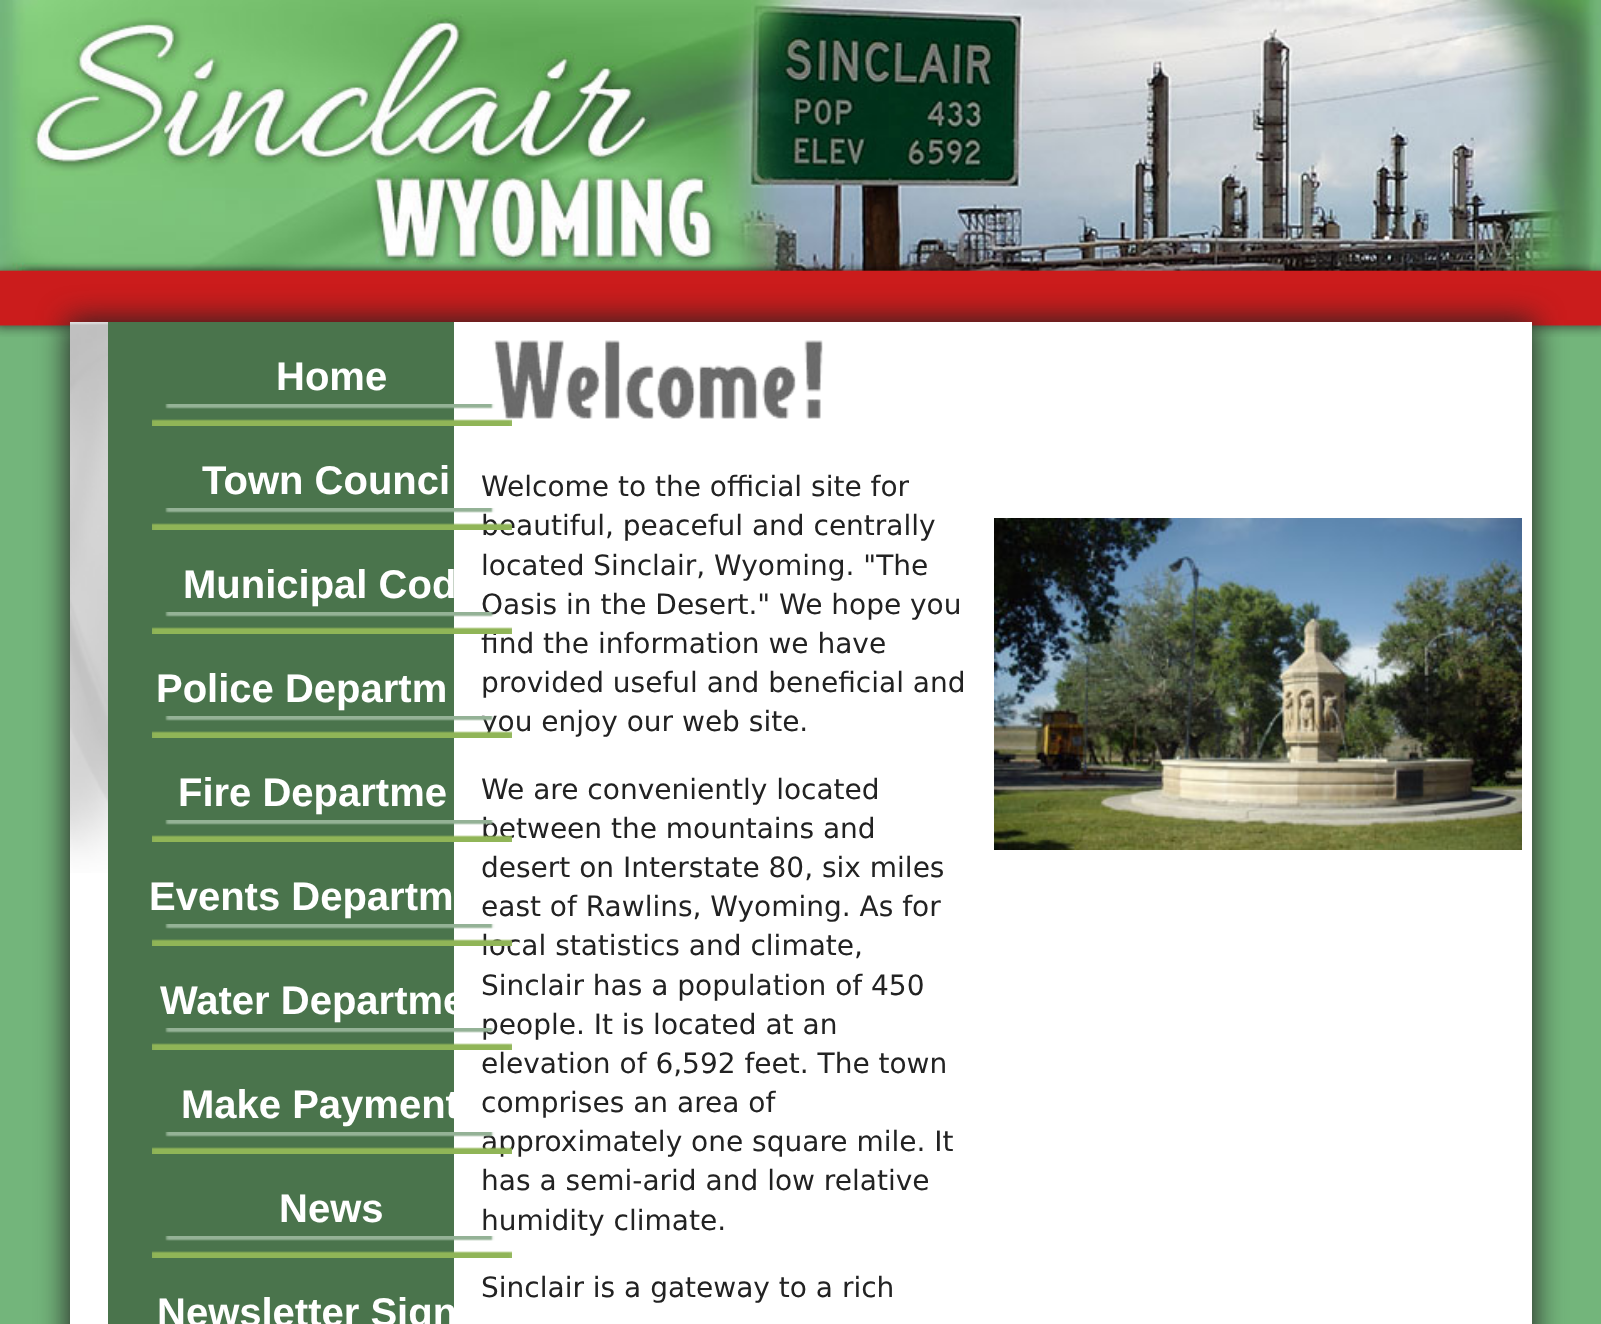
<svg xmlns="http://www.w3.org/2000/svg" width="1601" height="1324">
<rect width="100%" height="100%" fill="#73b57b"/>
<image x="0" y="0" width="1601" height="337" href="media/1.png"/>
<rect x="68" y="320" width="1466" height="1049" fill="#222" filter="blur(15px)"/>
<rect x="70" y="322" width="1462" height="1002" fill="#fff"/>
<image x="70" y="322" width="38" height="551" href="media/2.png"/>
<rect x="108" y="322" width="346" height="1002" fill="#4a744c"/>
<image x="493" y="340" width="330" height="79" href="media/12.png"/>
<image x="152" y="404" width="360" height="22" href="media/3.png"/>
<text x="276" y="390" style="font-family:Liberation Sans;font-size:40px;font-weight:bold;fill:#fff">Home</text>
<text x="481" y="535" style="font-family:DejaVu Sans;font-size:28px;fill:#222">beautiful, peaceful and centrally</text>
<image x="152" y="508" width="360" height="22" href="media/4.png"/>
<text x="202" y="494" style="font-family:Liberation Sans;font-size:40px;font-weight:bold;fill:#fff">Town Counci</text>
<text x="481" y="614" style="font-family:DejaVu Sans;font-size:28px;fill:#222">Oasis in the Desert." We hope you</text>
<text x="481" y="653" style="font-family:DejaVu Sans;font-size:28px;fill:#222">find the information we have</text>
<image x="152" y="612" width="360" height="22" href="media/5.png"/>
<text x="183" y="598" style="font-family:Liberation Sans;font-size:40px;font-weight:bold;fill:#fff">Municipal Cod</text>
<text x="481" y="731" style="font-family:DejaVu Sans;font-size:28px;fill:#222">you enjoy our web site.</text>
<image x="152" y="716" width="360" height="22" href="media/6.png"/>
<text x="156" y="702" style="font-family:Liberation Sans;font-size:40px;font-weight:bold;fill:#fff">Police Departm</text>
<text x="481" y="838" style="font-family:DejaVu Sans;font-size:28px;fill:#222">between the mountains and</text>
<image x="152" y="820" width="360" height="22" href="media/7.png"/>
<text x="178" y="806" style="font-family:Liberation Sans;font-size:40px;font-weight:bold;fill:#fff">Fire Departme</text>
<text x="481" y="955" style="font-family:DejaVu Sans;font-size:28px;fill:#222">local statistics and climate,</text>
<image x="152" y="924" width="360" height="22" href="media/8.png"/>
<text x="149" y="910" style="font-family:Liberation Sans;font-size:40px;font-weight:bold;fill:#fff">Events Departm</text>
<text x="481" y="1034" style="font-family:DejaVu Sans;font-size:28px;fill:#222">people. It is located at an</text>
<image x="152" y="1028" width="360" height="22" href="media/9.png"/>
<text x="160" y="1014" style="font-family:Liberation Sans;font-size:40px;font-weight:bold;fill:#fff">Water Departme</text>
<text x="481" y="1151" style="font-family:DejaVu Sans;font-size:28px;fill:#222">approximately one square mile. It</text>
<image x="152" y="1132" width="360" height="22" href="media/10.png"/>
<text x="181" y="1118" style="font-family:Liberation Sans;font-size:40px;font-weight:bold;fill:#fff">Make Payment</text>
<image x="152" y="1236" width="360" height="22" href="media/11.png"/>
<text x="279" y="1222" style="font-family:Liberation Sans;font-size:40px;font-weight:bold;fill:#fff">News</text>
<text x="157" y="1326" style="font-family:Liberation Sans;font-size:40px;font-weight:bold;fill:#fff">Newsletter Signup</text>
<text x="481" y="496" style="font-family:DejaVu Sans;font-size:28px;fill:#222">Welcome to the official site for</text>
<text x="481" y="575" style="font-family:DejaVu Sans;font-size:28px;fill:#222">located Sinclair, Wyoming. "The</text>
<text x="481" y="692" style="font-family:DejaVu Sans;font-size:28px;fill:#222">provided useful and beneficial and</text>
<text x="481" y="799" style="font-family:DejaVu Sans;font-size:28px;fill:#222">We are conveniently located</text>
<text x="481" y="877" style="font-family:DejaVu Sans;font-size:28px;fill:#222">desert on Interstate 80, six miles</text>
<text x="481" y="916" style="font-family:DejaVu Sans;font-size:28px;fill:#222">east of Rawlins, Wyoming. As for</text>
<text x="481" y="995" style="font-family:DejaVu Sans;font-size:28px;fill:#222">Sinclair has a population of 450</text>
<text x="481" y="1073" style="font-family:DejaVu Sans;font-size:28px;fill:#222">elevation of 6,592 feet. The town</text>
<text x="481" y="1112" style="font-family:DejaVu Sans;font-size:28px;fill:#222">comprises an area of</text>
<text x="481" y="1190" style="font-family:DejaVu Sans;font-size:28px;fill:#222">has a semi-arid and low relative</text>
<text x="481" y="1230" style="font-family:DejaVu Sans;font-size:28px;fill:#222">humidity climate.</text>
<text x="481" y="1297" style="font-family:DejaVu Sans;font-size:28px;fill:#222">Sinclair is a gateway to a rich</text>
<image x="994" y="518" width="528" height="332" href="media/13.png"/>
</svg>
